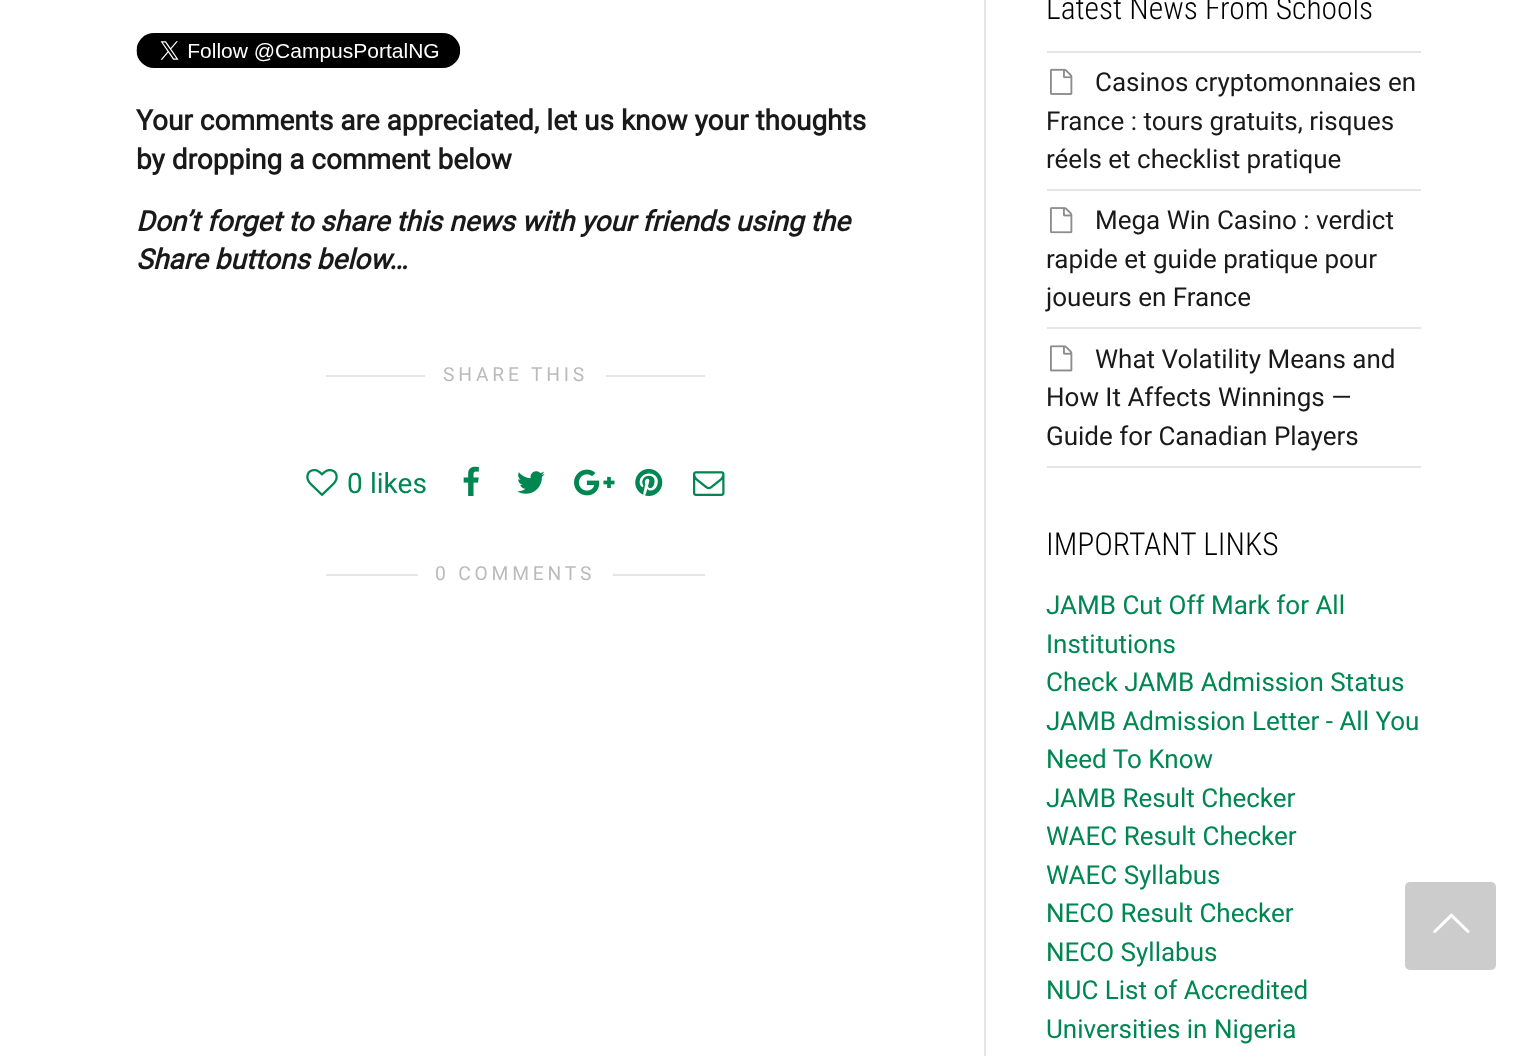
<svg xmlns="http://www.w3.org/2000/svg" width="1531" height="1056">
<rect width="100%" height="100%" fill="#fff"/>
<rect x="984" width="2" height="1056" fill="#e5e5e5"/>
<image x="136" y="33" width="325" height="35" href="media/1.png"/>
<text x="136" y="130" style="font-family:Roboto;font-size:28px;font-weight:bold;fill:#191919">Your comments are appreciated, let us know your thoughts</text>
<text x="136" y="169" style="font-family:Roboto;font-size:28px;font-weight:bold;fill:#191919">by dropping a comment below</text>
<text x="136" y="231" style="font-family:Roboto;font-size:28px;font-weight:bold;font-style:italic;fill:#191919">Don’t forget to share this news with your friends using the</text>
<text x="136" y="269" style="font-family:Roboto;font-size:28px;font-weight:bold;font-style:italic;fill:#191919">Share buttons below…</text>
<rect x="326" y="375" width="379" height="2" fill="#e5e5e5"/>
<rect x="425" y="361" width="181" height="29" rx="4" fill="#fff"/>
<text x="443" y="381" style="font-family:Roboto;font-size:19.25px;letter-spacing:3.8px;fill:#bbb">SHARE THIS</text>
<image x="306" y="469" width="32" height="27" href="media/2.png"/>
<text x="347" y="493" style="font-family:Roboto;font-size:28px;fill:#008651">0</text>
<text x="370" y="493" style="font-family:Roboto;font-size:28px;fill:#008651">likes</text>
<image x="463" y="466" width="16" height="30" href="media/3.png"/>
<image x="517" y="471" width="28" height="23" href="media/4.png"/>
<image x="574" y="469" width="41" height="27" href="media/5.png"/>
<image x="635" y="469" width="28" height="27" href="media/6.png"/>
<image x="693" y="471" width="32" height="25" href="media/7.png"/>
<rect x="326" y="574" width="379" height="2" fill="#e5e5e5"/>
<rect x="418" y="560" width="195" height="30" rx="4" fill="#fff"/>
<text x="435" y="580" style="font-family:Roboto;font-size:19.25px;letter-spacing:3.8px;fill:#bbb">0 COMMENTS</text>
<text x="1046" y="19" style="font-family:Roboto Condensed;font-size:31.5px;font-weight:300;fill:#000">Latest News From Schools</text>
<rect x="1047" y="51" width="374" height="2" fill="#e5e5e5"/>
<rect x="1047" y="189" width="374" height="2" fill="#e5e5e5"/>
<image x="1050" y="68" width="23" height="27" href="media/8.png"/>
<text x="1095" y="91" style="font-family:Roboto;font-size:26px;fill:#191919">Casinos cryptomonnaies en</text>
<text x="1046" y="130" style="font-family:Roboto;font-size:26px;fill:#191919">France : tours gratuits, risques</text>
<text x="1046" y="168" style="font-family:Roboto;font-size:26px;fill:#191919">réels et checklist pratique</text>
<rect x="1047" y="327" width="374" height="2" fill="#e5e5e5"/>
<image x="1050" y="207" width="23" height="27" href="media/9.png"/>
<text x="1095" y="229" style="font-family:Roboto;font-size:26px;fill:#191919">Mega Win Casino : verdict</text>
<text x="1046" y="268" style="font-family:Roboto;font-size:26px;fill:#191919">rapide et guide pratique pour</text>
<text x="1046" y="306" style="font-family:Roboto;font-size:26px;fill:#191919">joueurs en France</text>
<rect x="1047" y="466" width="374" height="2" fill="#e5e5e5"/>
<image x="1050" y="345" width="23" height="27" href="media/10.png"/>
<text x="1095" y="368" style="font-family:Roboto;font-size:26px;fill:#191919">What Volatility Means and</text>
<text x="1046" y="406" style="font-family:Roboto;font-size:26px;fill:#191919">How It Affects Winnings —</text>
<text x="1046" y="445" style="font-family:Roboto;font-size:26px;fill:#191919">Guide for Canadian Players</text>
<text x="1046" y="555" style="font-family:Roboto Condensed;font-size:31.5px;font-weight:300;fill:#000">IMPORTANT LINKS</text>
<text x="1046" y="614" style="font-family:Roboto;font-size:26px;fill:#008651">JAMB Cut Off Mark for All</text>
<text x="1046" y="653" style="font-family:Roboto;font-size:26px;fill:#008651">Institutions</text>
<text x="1046" y="691" style="font-family:Roboto;font-size:26px;fill:#008651">Check JAMB Admission Status</text>
<text x="1046" y="730" style="font-family:Roboto;font-size:26px;fill:#008651">JAMB Admission Letter - All You</text>
<text x="1046" y="768" style="font-family:Roboto;font-size:26px;fill:#008651">Need To Know</text>
<text x="1046" y="807" style="font-family:Roboto;font-size:26px;fill:#008651">JAMB Result Checker</text>
<text x="1046" y="845" style="font-family:Roboto;font-size:26px;fill:#008651">WAEC Result Checker</text>
<text x="1046" y="884" style="font-family:Roboto;font-size:26px;fill:#008651">WAEC Syllabus</text>
<text x="1046" y="922" style="font-family:Roboto;font-size:26px;fill:#008651">NECO Result Checker</text>
<text x="1046" y="961" style="font-family:Roboto;font-size:26px;fill:#008651">NECO Syllabus</text>
<text x="1046" y="999" style="font-family:Roboto;font-size:26px;fill:#008651">NUC List of Accredited</text>
<text x="1046" y="1038" style="font-family:Roboto;font-size:26px;fill:#008651">Universities in Nigeria</text>
<rect x="1405" y="882" width="91" height="88" rx="5" fill="#ccc"/>
<image x="1433" y="913" width="37" height="20" href="media/11.png"/>
</svg>
